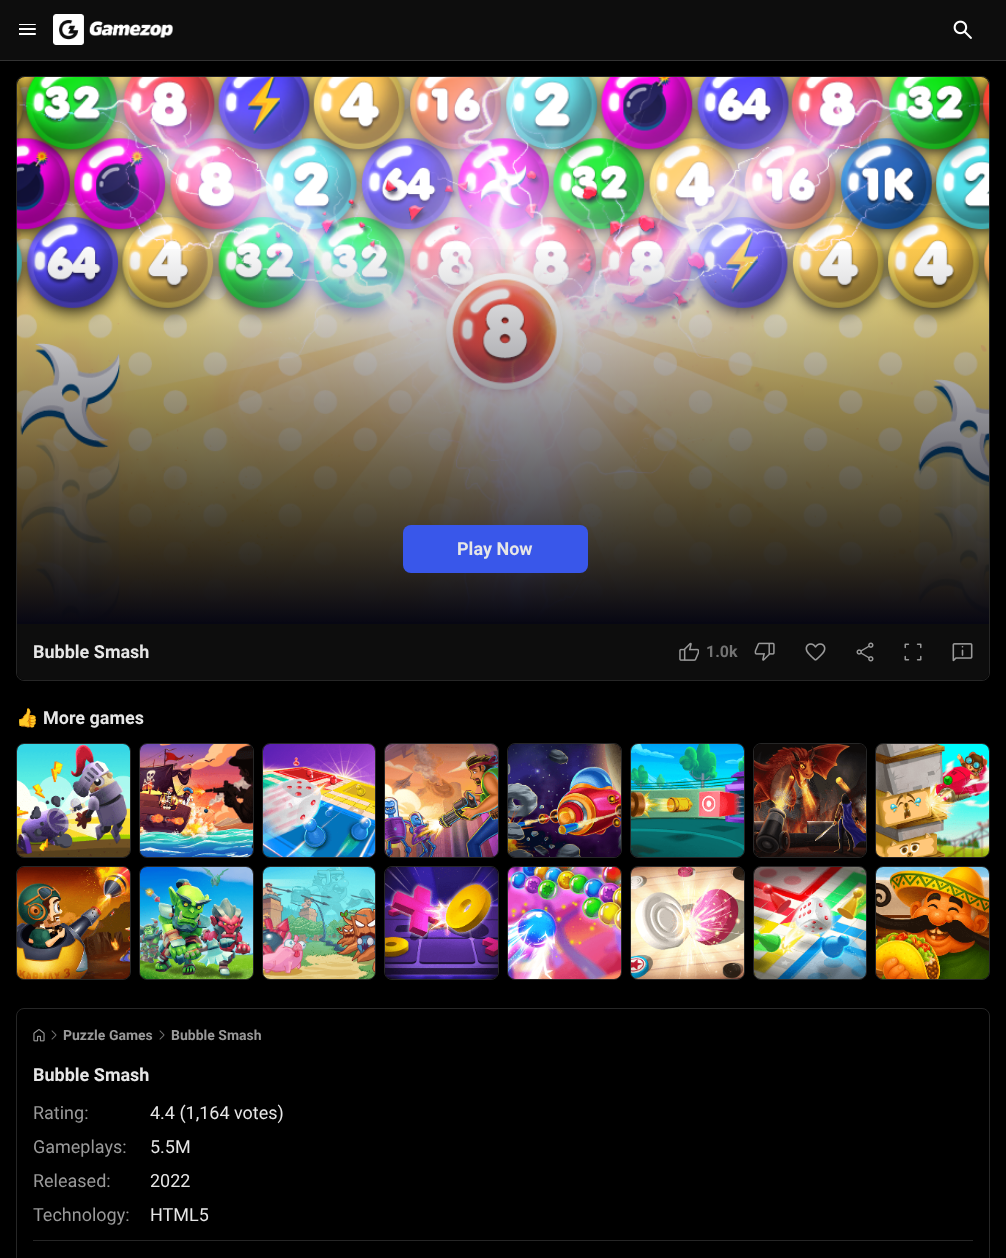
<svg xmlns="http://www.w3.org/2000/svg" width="1006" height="1258">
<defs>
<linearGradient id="g1" gradientUnits="userSpaceOnUse" x1="503" y1="77" x2="503" y2="624"><stop offset="0.3" stop-color="#070713" stop-opacity="0"/><stop offset="1" stop-color="#070713"/></linearGradient>
</defs>
<rect width="100%" height="100%" fill="#000"/>
<rect y="60" width="1006" height="1" fill="#333"/>
<rect width="1006" height="60" fill="#0d0d0d"/>
<image x="19" y="24" width="17" height="11" href="media/1.png"/>
<image x="53" y="14" width="120" height="31" href="media/2.png"/>
<image x="953" y="20" width="19" height="19" href="media/3.png"/>
<rect x="16.5" y="76.5" width="973" height="604" rx="7.5" fill="none" stroke="#262626"/>
<image x="17" y="77" width="972" height="545" href="media/4.png"/>
<rect x="17" y="249" width="972" height="375" fill="url(#g1)"/>
<rect x="403" y="525" width="185" height="48" rx="8" fill="#3957ea"/>
<text x="457" y="555" style="font-family:Roboto;font-size:18px;font-weight:bold;fill:#e6e6e6">Play Now</text>
<path d="M17 624h972v48c0 4.5-3.5 8-8 8h-956c-4.5 0-8-3.5-8-8z" fill="#0d0d0d"/>
<text x="33" y="658" style="font-family:Roboto;font-size:18px;font-weight:bold;fill:#e6e6e6">Bubble Smash</text>
<image x="679" y="642" width="20" height="19" href="media/5.png"/>
<text x="706" y="657" style="font-family:Roboto;font-size:16px;font-weight:bold;fill:#737373">1.0k</text>
<image x="754" y="642" width="21" height="19" href="media/6.png"/>
<image x="805" y="643" width="21" height="18" href="media/7.png"/>
<image x="856" y="642" width="18" height="20" href="media/8.png"/>
<image x="904" y="643" width="18" height="18" href="media/9.png"/>
<image x="952" y="643" width="21" height="19" href="media/10.png"/>
<text x="16" y="724" style="font-family:Noto Color Emoji;font-size:18px;font-weight:bold;fill:#e6e6e6">👍</text>
<text x="43" y="724" style="font-family:Roboto;font-size:18px;font-weight:bold;fill:#e6e6e6">More games</text>
<rect x="16.5" y="743.5" width="114" height="114" rx="7.5" fill="none" stroke="#262626"/>
<image x="17" y="744" width="113" height="113" href="media/11.png"/>
<rect x="139.5" y="743.5" width="114" height="114" rx="7.5" fill="none" stroke="#262626"/>
<image x="140" y="744" width="113" height="113" href="media/12.png"/>
<rect x="262.5" y="743.5" width="113" height="114" rx="7.5" fill="none" stroke="#262626"/>
<image x="263" y="744" width="112" height="113" href="media/13.png"/>
<rect x="384.5" y="743.5" width="114" height="114" rx="7.5" fill="none" stroke="#262626"/>
<image x="385" y="744" width="113" height="113" href="media/14.png"/>
<rect x="507.5" y="743.5" width="114" height="114" rx="7.5" fill="none" stroke="#262626"/>
<image x="508" y="744" width="113" height="113" href="media/15.png"/>
<rect x="630.5" y="743.5" width="114" height="114" rx="7.5" fill="none" stroke="#262626"/>
<image x="631" y="744" width="113" height="113" href="media/16.png"/>
<rect x="753.5" y="743.5" width="113" height="114" rx="7.5" fill="none" stroke="#262626"/>
<image x="754" y="744" width="112" height="113" href="media/17.png"/>
<rect x="875.5" y="743.5" width="114" height="114" rx="7.5" fill="none" stroke="#262626"/>
<image x="876" y="744" width="113" height="113" href="media/18.png"/>
<rect x="16.5" y="866.5" width="114" height="113" rx="7.5" fill="none" stroke="#262626"/>
<image x="17" y="867" width="113" height="112" href="media/19.png"/>
<rect x="139.5" y="866.5" width="114" height="113" rx="7.5" fill="none" stroke="#262626"/>
<image x="140" y="867" width="113" height="112" href="media/20.png"/>
<rect x="262.5" y="866.5" width="113" height="113" rx="7.5" fill="none" stroke="#262626"/>
<image x="263" y="867" width="112" height="112" href="media/21.png"/>
<rect x="384.5" y="866.5" width="114" height="113" rx="7.5" fill="none" stroke="#262626"/>
<image x="385" y="867" width="113" height="112" href="media/22.png"/>
<rect x="507.5" y="866.5" width="114" height="113" rx="7.5" fill="none" stroke="#262626"/>
<image x="508" y="867" width="113" height="112" href="media/23.png"/>
<rect x="630.5" y="866.5" width="114" height="113" rx="7.5" fill="none" stroke="#262626"/>
<image x="631" y="867" width="113" height="112" href="media/24.png"/>
<rect x="753.5" y="866.5" width="113" height="113" rx="7.5" fill="none" stroke="#262626"/>
<image x="754" y="867" width="112" height="112" href="media/25.png"/>
<rect x="875.5" y="866.5" width="114" height="113" rx="7.5" fill="none" stroke="#262626"/>
<image x="876" y="867" width="113" height="112" href="media/26.png"/>
<rect x="16.5" y="1008.5" width="973" height="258" rx="7.5" fill="none" stroke="#262626"/>
<image x="33" y="1029" width="12" height="13" href="media/27.png"/>
<image x="51" y="1030" width="6" height="10" href="media/28.png"/>
<text x="63" y="1040" style="font-family:Roboto;font-size:14px;font-weight:bold;fill:#999">Puzzle Games</text>
<image x="159" y="1030" width="6" height="10" href="media/28.png"/>
<text x="171" y="1040" style="font-family:Roboto;font-size:14px;font-weight:bold;fill:#999">Bubble Smash</text>
<text x="33" y="1081" style="font-family:Roboto;font-size:18px;font-weight:bold;fill:#e6e6e6">Bubble Smash</text>
<text x="33" y="1119" style="font-family:Roboto;font-size:18px;fill:#999">Rating:</text>
<text x="33" y="1153" style="font-family:Roboto;font-size:18px;fill:#999">Gameplays:</text>
<text x="33" y="1187" style="font-family:Roboto;font-size:18px;fill:#999">Released:</text>
<text x="33" y="1221" style="font-family:Roboto;font-size:18px;fill:#999">Technology:</text>
<text x="150" y="1119" style="font-family:Roboto;font-size:18px;fill:#e6e6e6">4.4 (1,164 votes)</text>
<text x="150" y="1153" style="font-family:Roboto;font-size:18px;fill:#e6e6e6">5.5M</text>
<text x="150" y="1187" style="font-family:Roboto;font-size:18px;fill:#e6e6e6">2022</text>
<text x="150" y="1221" style="font-family:Roboto;font-size:18px;fill:#e6e6e6">HTML5</text>
<rect x="33" y="1240" width="940" height="1" fill="#262626"/>
</svg>
